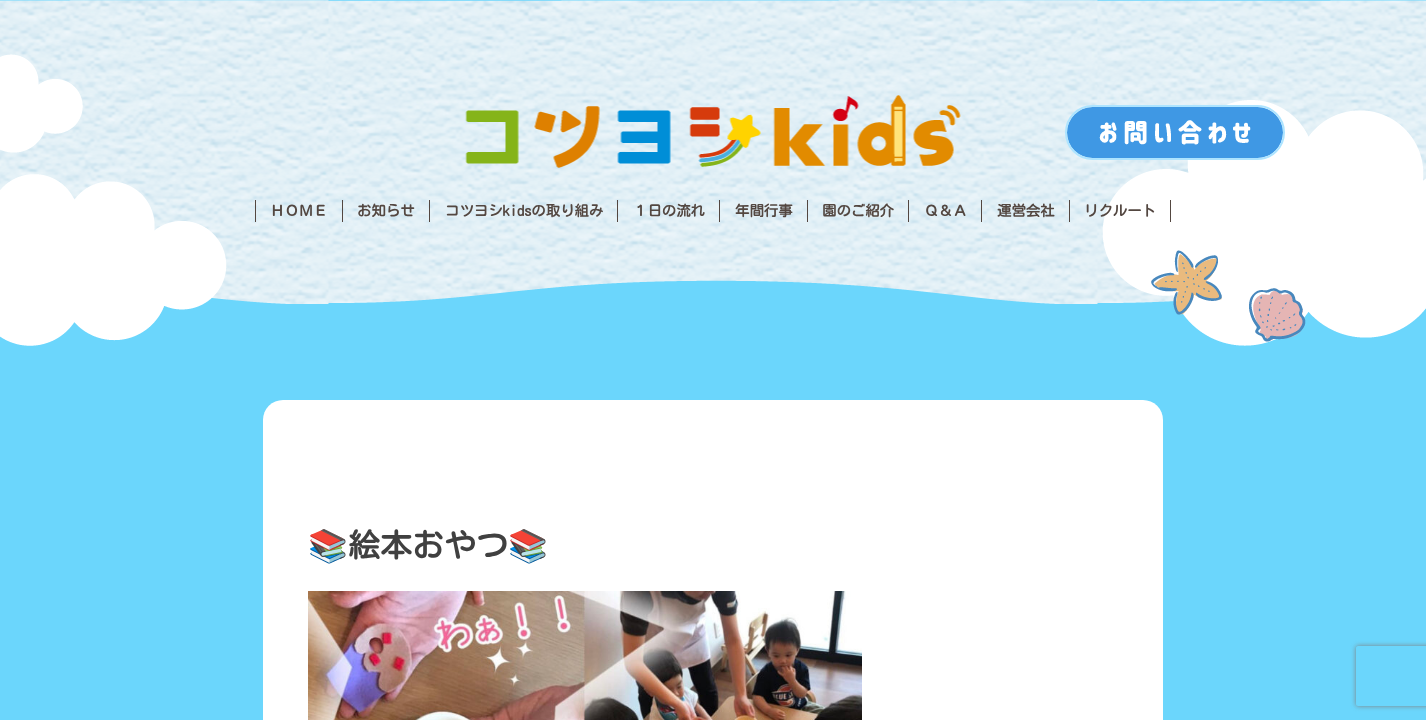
<svg xmlns="http://www.w3.org/2000/svg" width="1426" height="720">
<defs>
<clipPath id="clip1"><path d="M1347 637h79v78h-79zm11 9h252c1 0 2 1 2 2v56c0 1-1 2-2 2h-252c-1 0-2-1-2-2v-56c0-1 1-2 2-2z" clip-rule="evenodd"/></clipPath>
</defs>
<rect width="100%" height="100%" fill="#6bd6fc"/>
<image x="0" y="0" width="1426" height="304" href="media/1.png"/>
<image x="0" y="54" width="227" height="292" href="media/2.png"/>
<image x="465" y="95" width="496" height="73" href="media/3.png"/>
<image x="1102" y="100" width="324" height="246" href="media/4.png"/>
<rect x="1067" y="107" width="216" height="51" rx="25.5" fill="#3f98e4"/>
<image x="1099" y="120" width="152" height="25" href="media/5.png"/>
<rect x="1066" y="106" width="218" height="53" rx="26.5" fill="none" stroke="#ade4ff" stroke-width="2"/>
<rect x="342" y="200" width="1" height="22" fill="#534741"/>
<rect x="255" y="200" width="1" height="22" fill="#534741"/>
<text x="270" y="216" style="font-family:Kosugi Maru;font-size:14.4px;font-weight:bold;fill:#534741">ＨＯＭＥ</text>
<rect x="429" y="200" width="1" height="22" fill="#534741"/>
<text x="357" y="216" style="font-family:Kosugi Maru;font-size:14.4px;font-weight:bold;fill:#534741">お知らせ</text>
<rect x="617" y="200" width="1" height="22" fill="#534741"/>
<text x="445" y="216" style="font-family:Kosugi Maru;font-size:14.4px;font-weight:bold;fill:#534741">コツヨシkidsの取り組み</text>
<rect x="719" y="200" width="1" height="22" fill="#534741"/>
<text x="633" y="216" style="font-family:Kosugi Maru;font-size:14.4px;font-weight:bold;fill:#534741">１日の流れ</text>
<rect x="807" y="200" width="1" height="22" fill="#534741"/>
<text x="735" y="216" style="font-family:Kosugi Maru;font-size:14.4px;font-weight:bold;fill:#534741">年間行事</text>
<rect x="908" y="200" width="1" height="22" fill="#534741"/>
<text x="822" y="216" style="font-family:Kosugi Maru;font-size:14.4px;font-weight:bold;fill:#534741">園のご紹介</text>
<rect x="981" y="200" width="1" height="22" fill="#534741"/>
<text x="924" y="216" style="font-family:Kosugi Maru;font-size:14.4px;font-weight:bold;fill:#534741">Ｑ＆Ａ</text>
<rect x="1069" y="200" width="1" height="22" fill="#534741"/>
<text x="997" y="216" style="font-family:Kosugi Maru;font-size:14.4px;font-weight:bold;fill:#534741">運営会社</text>
<rect x="1170" y="200" width="1" height="22" fill="#534741"/>
<text x="1084" y="216" style="font-family:Kosugi Maru;font-size:14.4px;font-weight:bold;fill:#534741">リクルート</text>
<image x="1151" y="250" width="155" height="92" href="media/6.png"/>
<rect x="263" y="400" width="900" height="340" rx="20" fill="#fff"/>
<text x="308" y="557" style="font-family:Noto Color Emoji;font-size:32px;font-weight:bold;fill:#404040">📚</text>
<text x="348" y="557" style="font-family:Kosugi Maru;font-size:32px;font-weight:bold;fill:#404040">絵本おやつ</text>
<text x="508" y="557" style="font-family:Noto Color Emoji;font-size:32px;font-weight:bold;fill:#404040">📚</text>
<image x="308" y="591" width="554" height="129" href="media/7.png"/>
<g clip-path="url(#clip1)">
<rect x="1356" y="646" width="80" height="60" rx="2" fill="#808080" filter="blur(2.5px)"/>
</g>
</svg>
